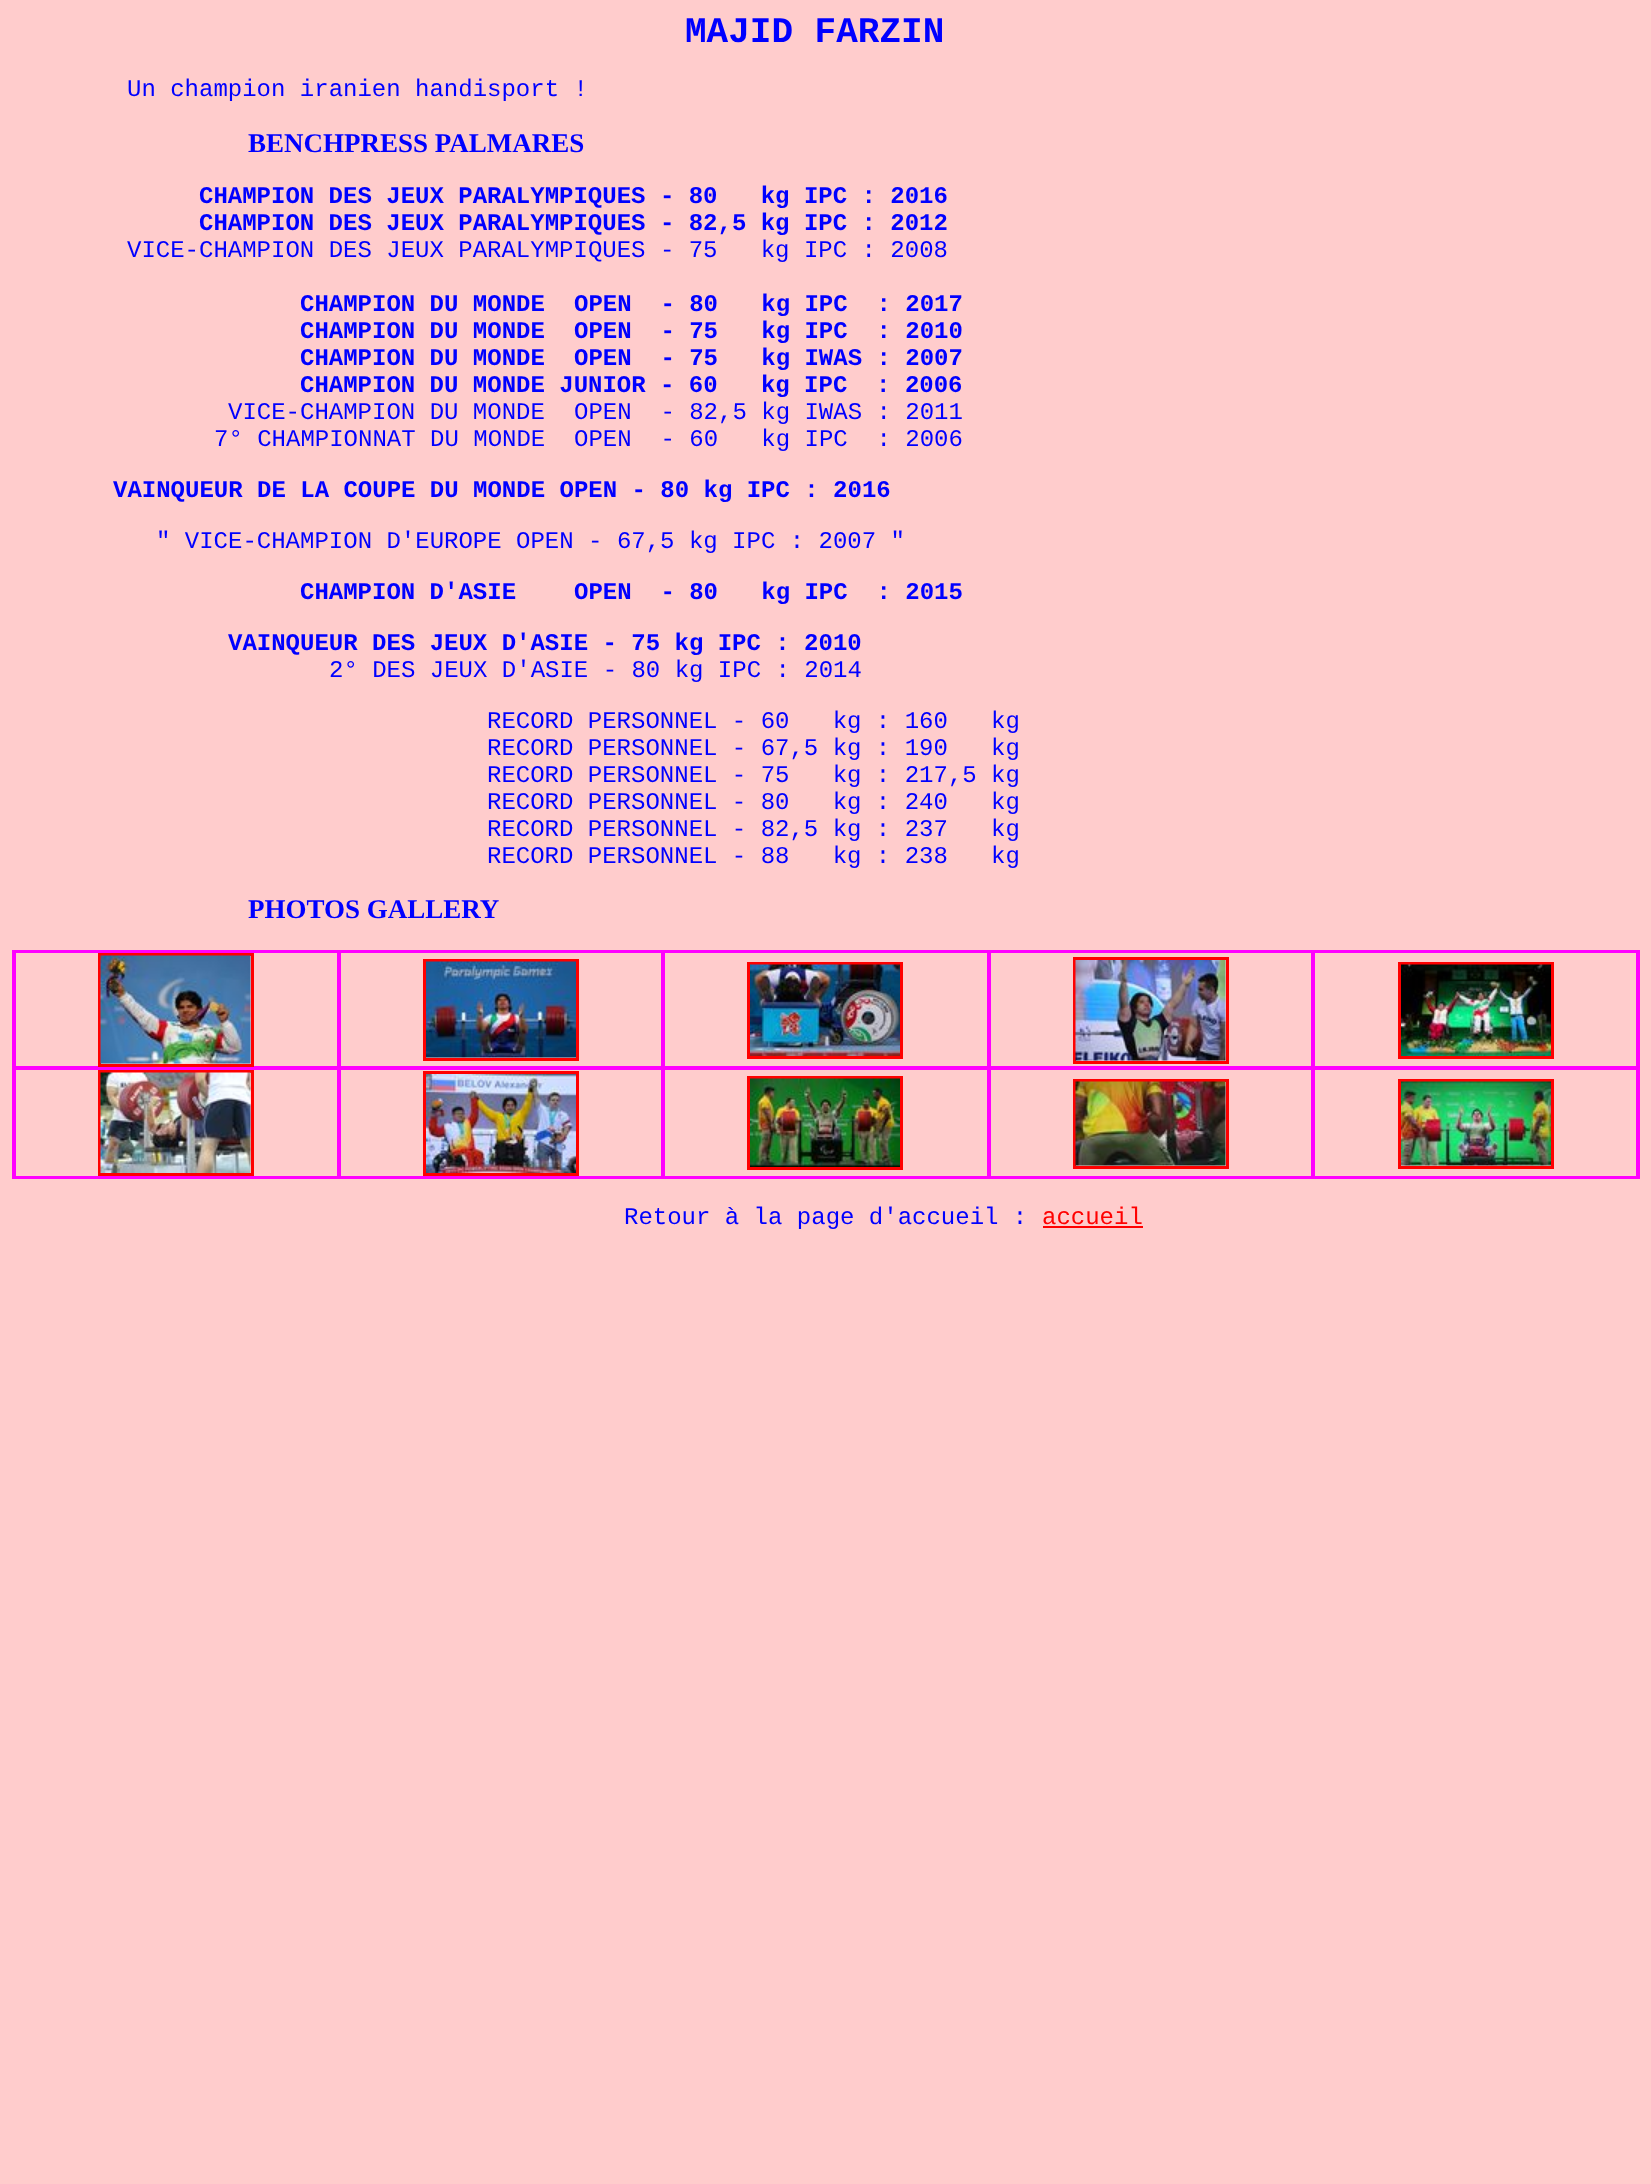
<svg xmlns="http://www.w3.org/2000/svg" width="1651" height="2184">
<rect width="100%" height="100%" fill="#fcc"/>
<text x="685" y="42" style="font-family:Liberation Mono;font-size:36px;font-weight:bold;fill:#00f">MAJID FARZIN</text>
<text x="127" y="96" style="font-family:Liberation Mono;font-size:24px;fill:#00f">Un champion iranien handisport !</text>
<text x="248" y="152" style="font-family:Liberation Serif;font-size:27px;font-weight:bold;fill:#00f">BENCHPRESS PALMARES</text>
<text x="199" y="203" style="font-family:Liberation Mono;font-size:24px;font-weight:bold;fill:#00f" xml:space="preserve">CHAMPION DES JEUX PARALYMPIQUES - 80   kg IPC : 2016</text>
<text x="199" y="230" style="font-family:Liberation Mono;font-size:24px;font-weight:bold;fill:#00f">CHAMPION DES JEUX PARALYMPIQUES - 82,5 kg IPC : 2012</text>
<text x="127" y="257" style="font-family:Liberation Mono;font-size:24px;fill:#00f" xml:space="preserve">VICE-CHAMPION DES JEUX PARALYMPIQUES - 75   kg IPC : 2008</text>
<text x="300" y="311" style="font-family:Liberation Mono;font-size:24px;font-weight:bold;fill:#00f">CHAMPION DU MONDE</text>
<text x="574" y="311" style="font-family:Liberation Mono;font-size:24px;font-weight:bold;fill:#00f" xml:space="preserve">OPEN  - 80   kg IPC  : 2017</text>
<text x="300" y="338" style="font-family:Liberation Mono;font-size:24px;font-weight:bold;fill:#00f">CHAMPION DU MONDE</text>
<text x="574" y="338" style="font-family:Liberation Mono;font-size:24px;font-weight:bold;fill:#00f" xml:space="preserve">OPEN  - 75   kg IPC  : 2010</text>
<text x="300" y="365" style="font-family:Liberation Mono;font-size:24px;font-weight:bold;fill:#00f">CHAMPION DU MONDE</text>
<text x="574" y="365" style="font-family:Liberation Mono;font-size:24px;font-weight:bold;fill:#00f" xml:space="preserve">OPEN  - 75   kg IWAS : 2007</text>
<text x="300" y="392" style="font-family:Liberation Mono;font-size:24px;font-weight:bold;fill:#00f" xml:space="preserve">CHAMPION DU MONDE JUNIOR - 60   kg IPC  : 2006</text>
<text x="228" y="419" style="font-family:Liberation Mono;font-size:24px;fill:#00f">VICE-CHAMPION DU MONDE</text>
<text x="574" y="419" style="font-family:Liberation Mono;font-size:24px;fill:#00f" xml:space="preserve">OPEN  - 82,5 kg IWAS : 2011</text>
<text x="214" y="446" style="font-family:Liberation Mono;font-size:24px;fill:#00f" xml:space="preserve">7° CHAMPIONNAT DU MONDE  OPEN  - 60   kg IPC  : 2006</text>
<text x="113" y="497" style="font-family:Liberation Mono;font-size:24px;font-weight:bold;fill:#00f">VAINQUEUR DE LA COUPE DU MONDE OPEN - 80 kg IPC : 2016</text>
<text x="156" y="548" style="font-family:Liberation Mono;font-size:24px;fill:#00f">" VICE-CHAMPION D'EUROPE OPEN - 67,5 kg IPC : 2007 "</text>
<text x="300" y="599" style="font-family:Liberation Mono;font-size:24px;font-weight:bold;fill:#00f">CHAMPION D'ASIE</text>
<text x="574" y="599" style="font-family:Liberation Mono;font-size:24px;font-weight:bold;fill:#00f" xml:space="preserve">OPEN  - 80   kg IPC  : 2015</text>
<text x="228" y="650" style="font-family:Liberation Mono;font-size:24px;font-weight:bold;fill:#00f">VAINQUEUR DES JEUX D'ASIE - 75 kg IPC : 2010</text>
<text x="329" y="677" style="font-family:Liberation Mono;font-size:24px;fill:#00f">2° DES JEUX D'ASIE - 80 kg IPC : 2014</text>
<text x="487" y="728" style="font-family:Liberation Mono;font-size:24px;fill:#00f" xml:space="preserve">RECORD PERSONNEL - 60   kg : 160   kg</text>
<text x="487" y="755" style="font-family:Liberation Mono;font-size:24px;fill:#00f" xml:space="preserve">RECORD PERSONNEL - 67,5 kg : 190   kg</text>
<text x="487" y="782" style="font-family:Liberation Mono;font-size:24px;fill:#00f" xml:space="preserve">RECORD PERSONNEL - 75   kg : 217,5 kg</text>
<text x="487" y="809" style="font-family:Liberation Mono;font-size:24px;fill:#00f" xml:space="preserve">RECORD PERSONNEL - 80   kg : 240   kg</text>
<text x="487" y="836" style="font-family:Liberation Mono;font-size:24px;fill:#00f" xml:space="preserve">RECORD PERSONNEL - 82,5 kg : 237   kg</text>
<text x="487" y="863" style="font-family:Liberation Mono;font-size:24px;fill:#00f" xml:space="preserve">RECORD PERSONNEL - 88   kg : 238   kg</text>
<text x="248" y="918" style="font-family:Liberation Serif;font-size:27px;font-weight:bold;fill:#00f">PHOTOS GALLERY</text>
<rect x="13" y="951" width="1626" height="227" fill="none" stroke="#f0f" stroke-width="2"/>
<rect x="15" y="952" width="323" height="115" fill="none" stroke="#f0f" stroke-width="2"/>
<rect x="99.5" y="954.5" width="153" height="111" fill="none" stroke="#f00" stroke-width="3"/>
<image x="100" y="955" width="151" height="109" href="media/1.png"/>
<rect x="340" y="952" width="322" height="115" fill="none" stroke="#f0f" stroke-width="2"/>
<rect x="424.5" y="960.5" width="153" height="99" fill="none" stroke="#f00" stroke-width="3"/>
<image x="426" y="961" width="150" height="97" href="media/2.png"/>
<rect x="664" y="952" width="324" height="115" fill="none" stroke="#f0f" stroke-width="2"/>
<rect x="748.5" y="963.5" width="153" height="94" fill="none" stroke="#f00" stroke-width="3"/>
<image x="750" y="964" width="150" height="92" href="media/3.png"/>
<rect x="990" y="952" width="322" height="115" fill="none" stroke="#f0f" stroke-width="2"/>
<rect x="1074.5" y="958.5" width="153" height="104" fill="none" stroke="#f00" stroke-width="3"/>
<image x="1075" y="960" width="151" height="101" href="media/4.png"/>
<rect x="1314" y="952" width="323" height="115" fill="none" stroke="#f0f" stroke-width="2"/>
<rect x="1399.5" y="963.5" width="153" height="94" fill="none" stroke="#f00" stroke-width="3"/>
<image x="1401" y="964" width="150" height="92" href="media/5.png"/>
<rect x="15" y="1069" width="323" height="108" fill="none" stroke="#f0f" stroke-width="2"/>
<rect x="99.5" y="1071.5" width="153" height="103" fill="none" stroke="#f00" stroke-width="3"/>
<image x="100" y="1072" width="151" height="101" href="media/6.png"/>
<rect x="340" y="1069" width="322" height="108" fill="none" stroke="#f0f" stroke-width="2"/>
<rect x="424.5" y="1072.5" width="153" height="102" fill="none" stroke="#f00" stroke-width="3"/>
<image x="426" y="1074" width="150" height="99" href="media/7.png"/>
<rect x="664" y="1069" width="324" height="108" fill="none" stroke="#f0f" stroke-width="2"/>
<rect x="748.5" y="1077.5" width="153" height="91" fill="none" stroke="#f00" stroke-width="3"/>
<image x="750" y="1078" width="150" height="89" href="media/8.png"/>
<rect x="990" y="1069" width="322" height="108" fill="none" stroke="#f0f" stroke-width="2"/>
<rect x="1074.5" y="1080.5" width="153" height="87" fill="none" stroke="#f00" stroke-width="3"/>
<image x="1075" y="1081" width="151" height="85" href="media/9.png"/>
<rect x="1314" y="1069" width="323" height="108" fill="none" stroke="#f0f" stroke-width="2"/>
<rect x="1399.5" y="1080.5" width="153" height="87" fill="none" stroke="#f00" stroke-width="3"/>
<image x="1401" y="1081" width="150" height="85" href="media/10.png"/>
<text x="624" y="1224" style="font-family:Liberation Mono;font-size:24px;fill:#00f">Retour à la page d'accueil :</text>
<text x="1042" y="1224" style="font-family:Liberation Mono;font-size:24px;fill:#f00">accueil</text>
<rect x="1043" y="1226" width="100" height="2" fill="#f00"/>
</svg>
